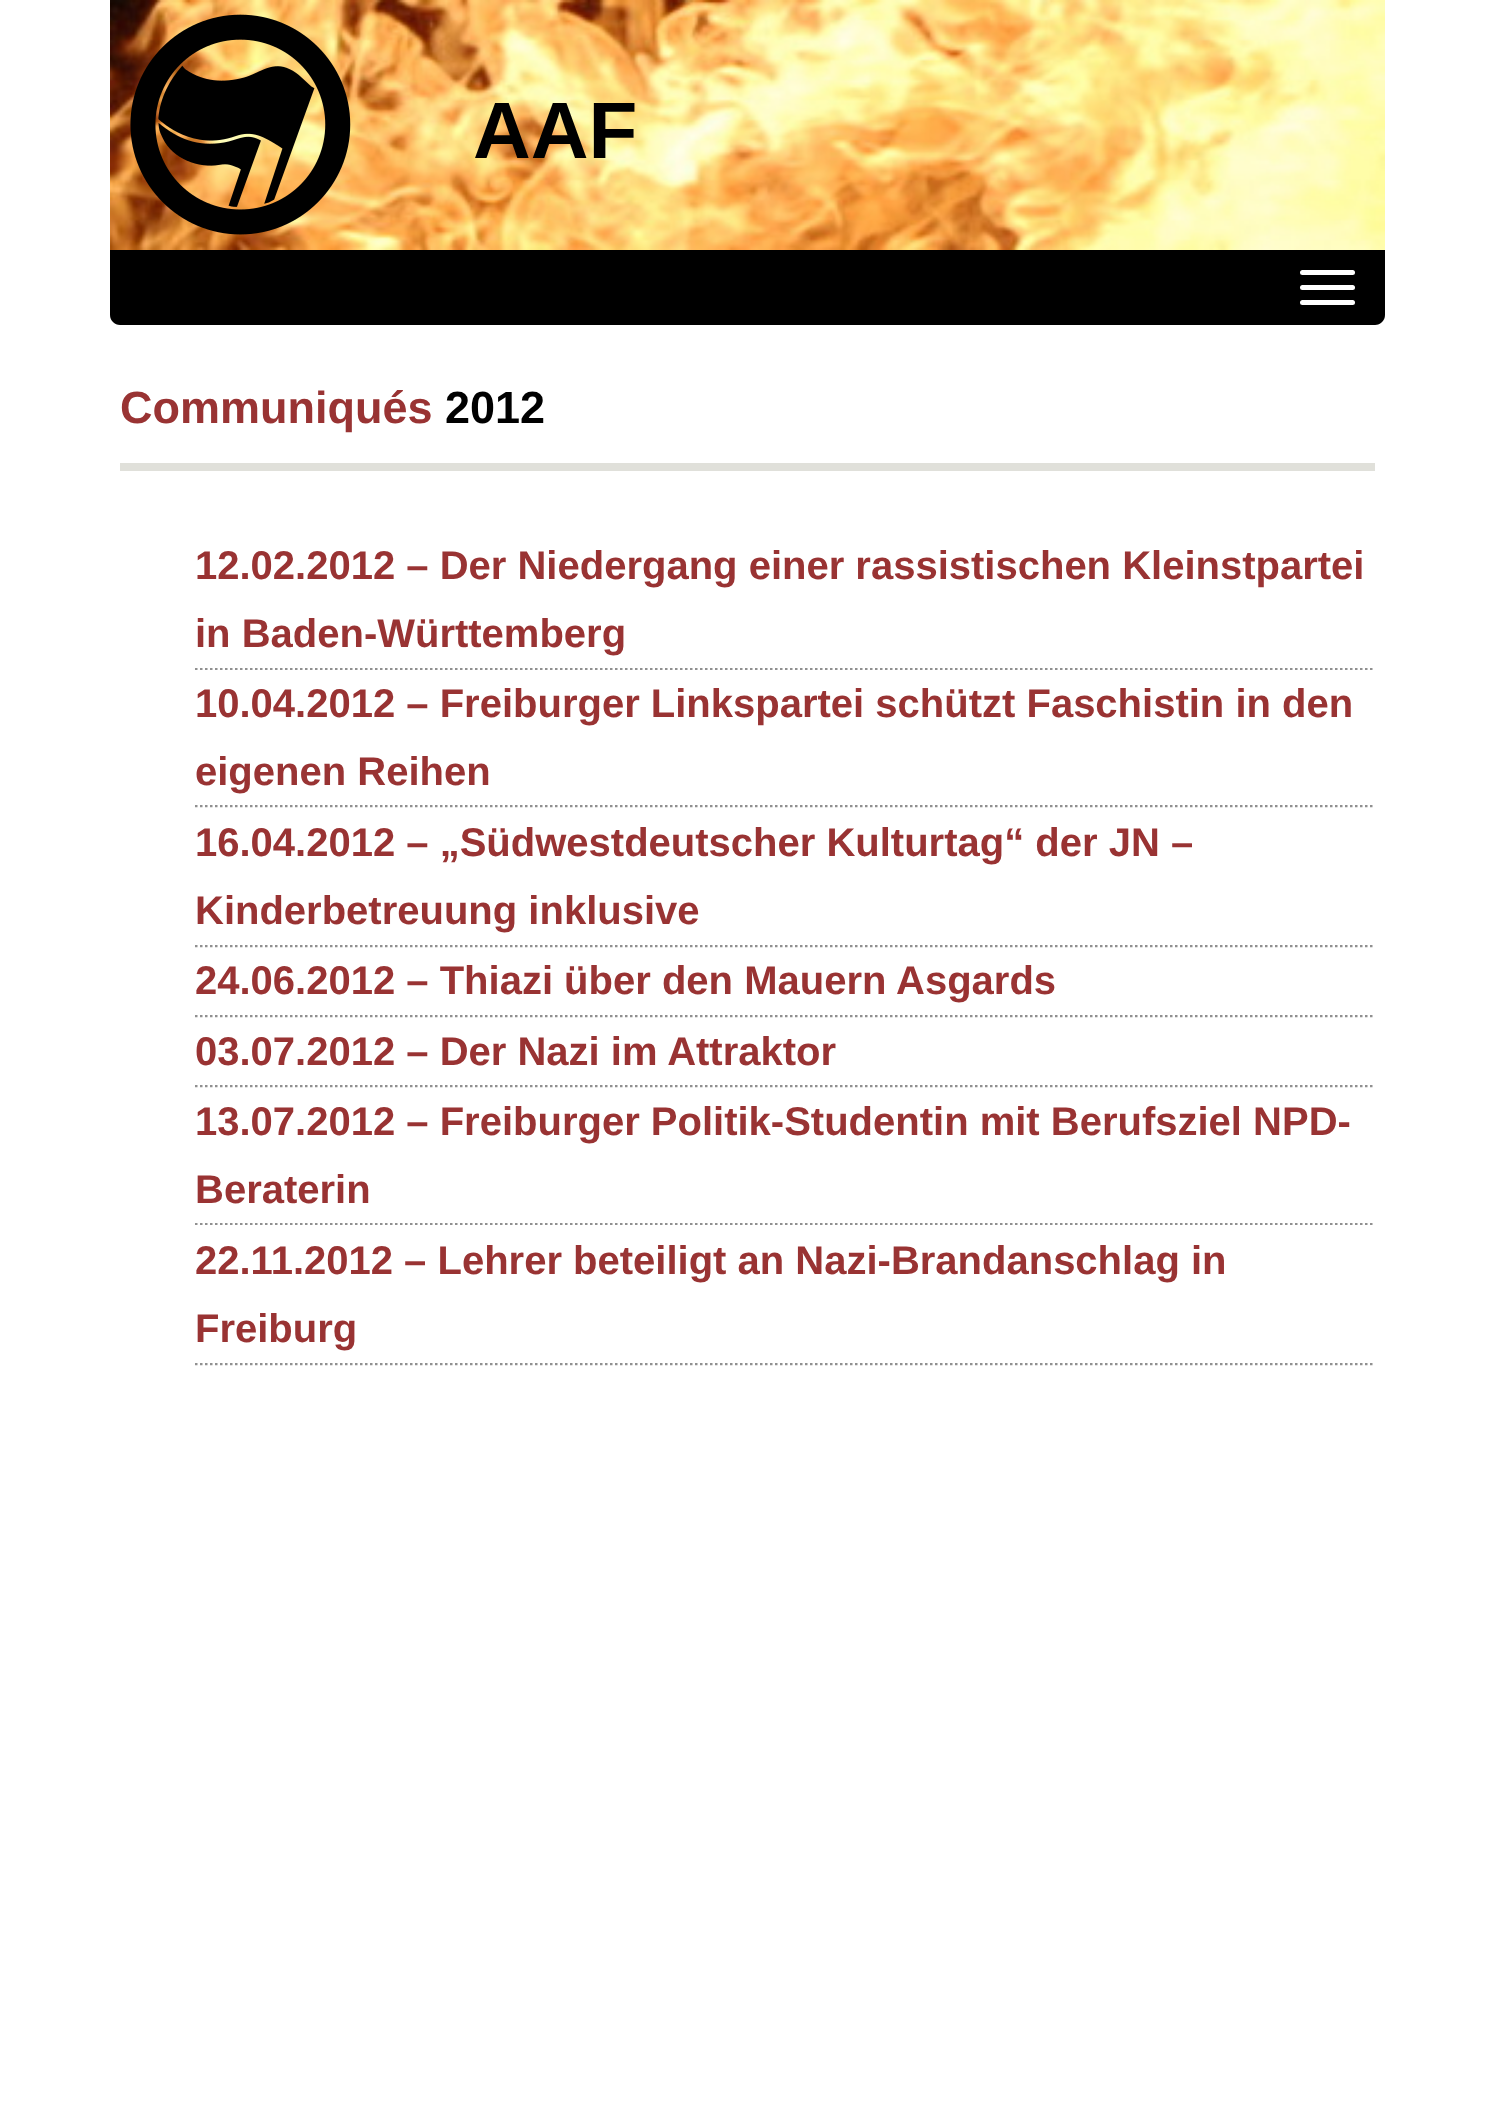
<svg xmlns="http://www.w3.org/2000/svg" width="1493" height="2106">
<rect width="100%" height="100%" fill="#fff"/>
<image x="110" y="0" width="1275" height="250" href="media/1.png"/>
<image x="130" y="14" width="221" height="221" href="media/2.png"/>
<text x="473" y="158" style="font-family:Liberation Sans;font-size:80px;font-weight:bold;fill:#000">AAF</text>
<path d="M110 250h1275v65c0 5.5-4.5 10-10 10h-1255c-5.5 0-10-4.5-10-10z" fill="#000"/>
<rect x="1300" y="270" width="55" height="5" rx="2.5" fill="#fff"/>
<rect x="1300" y="285" width="55" height="5" rx="2.5" fill="#fff"/>
<rect x="1300" y="300" width="55" height="5" rx="2.5" fill="#fff"/>
<rect x="120" y="463" width="1255" height="8" fill="#e0e0da"/>
<text x="120" y="423" style="font-family:Liberation Sans;font-size:45px;font-weight:bold;fill:#933">Communiqués</text>
<text x="445" y="423" style="font-family:Liberation Sans;font-size:45px;font-weight:bold;fill:#000">2012</text>
<path d="M195 669h1180" fill="none" stroke="#909090" stroke-width="2.5" stroke-dasharray="2.5 2.5"/>
<rect x="195" y="667" width="1178" height="1" fill="#fff"/>
<text x="195" y="579" style="font-family:Liberation Sans;font-size:40px;font-weight:bold;fill:#933">12.02.2012 – Der Niedergang einer rassistischen Kleinstpartei</text>
<text x="195" y="647" style="font-family:Liberation Sans;font-size:40px;font-weight:bold;fill:#933">in Baden-Württemberg</text>
<path d="M195 806h1180" fill="none" stroke="#909090" stroke-width="2.5" stroke-dasharray="2.5 2.5"/>
<rect x="195" y="670" width="1178" height="135" fill="#fff"/>
<text x="195" y="717" style="font-family:Liberation Sans;font-size:40px;font-weight:bold;fill:#933">10.04.2012 – Freiburger Linkspartei schützt Faschistin in den</text>
<text x="195" y="785" style="font-family:Liberation Sans;font-size:40px;font-weight:bold;fill:#933">eigenen Reihen</text>
<path d="M195 946h1180" fill="none" stroke="#909090" stroke-width="2.5" stroke-dasharray="2.5 2.5"/>
<rect x="195" y="944" width="1178" height="1" fill="#fff"/>
<text x="195" y="856" style="font-family:Liberation Sans;font-size:40px;font-weight:bold;fill:#933">16.04.2012 – „Südwestdeutscher Kulturtag“ der JN –</text>
<text x="195" y="924" style="font-family:Liberation Sans;font-size:40px;font-weight:bold;fill:#933">Kinderbetreuung inklusive</text>
<path d="M195 1016h1180" fill="none" stroke="#909090" stroke-width="2.5" stroke-dasharray="2.5 2.5"/>
<rect x="195" y="1014" width="1178" height="1" fill="#fff"/>
<text x="195" y="994" style="font-family:Liberation Sans;font-size:40px;font-weight:bold;fill:#933">24.06.2012 – Thiazi über den Mauern Asgards</text>
<path d="M195 1086h1180" fill="none" stroke="#909090" stroke-width="2.5" stroke-dasharray="2.5 2.5"/>
<rect x="195" y="1084" width="1178" height="1" fill="#fff"/>
<text x="195" y="1065" style="font-family:Liberation Sans;font-size:40px;font-weight:bold;fill:#933">03.07.2012 – Der Nazi im Attraktor</text>
<path d="M195 1224h1180" fill="none" stroke="#909090" stroke-width="2.5" stroke-dasharray="2.5 2.5"/>
<rect x="195" y="1222" width="1178" height="1" fill="#fff"/>
<text x="195" y="1135" style="font-family:Liberation Sans;font-size:40px;font-weight:bold;fill:#933">13.07.2012 – Freiburger Politik-Studentin mit Berufsziel NPD-</text>
<text x="195" y="1203" style="font-family:Liberation Sans;font-size:40px;font-weight:bold;fill:#933">Beraterin</text>
<path d="M195 1364h1180" fill="none" stroke="#909090" stroke-width="2.5" stroke-dasharray="2.5 2.5"/>
<rect x="195" y="1225" width="1178" height="138" fill="#fff"/>
<text x="195" y="1274" style="font-family:Liberation Sans;font-size:40px;font-weight:bold;fill:#933">22.11.2012 – Lehrer beteiligt an Nazi-Brandanschlag in</text>
<text x="195" y="1342" style="font-family:Liberation Sans;font-size:40px;font-weight:bold;fill:#933">Freiburg</text>
</svg>
